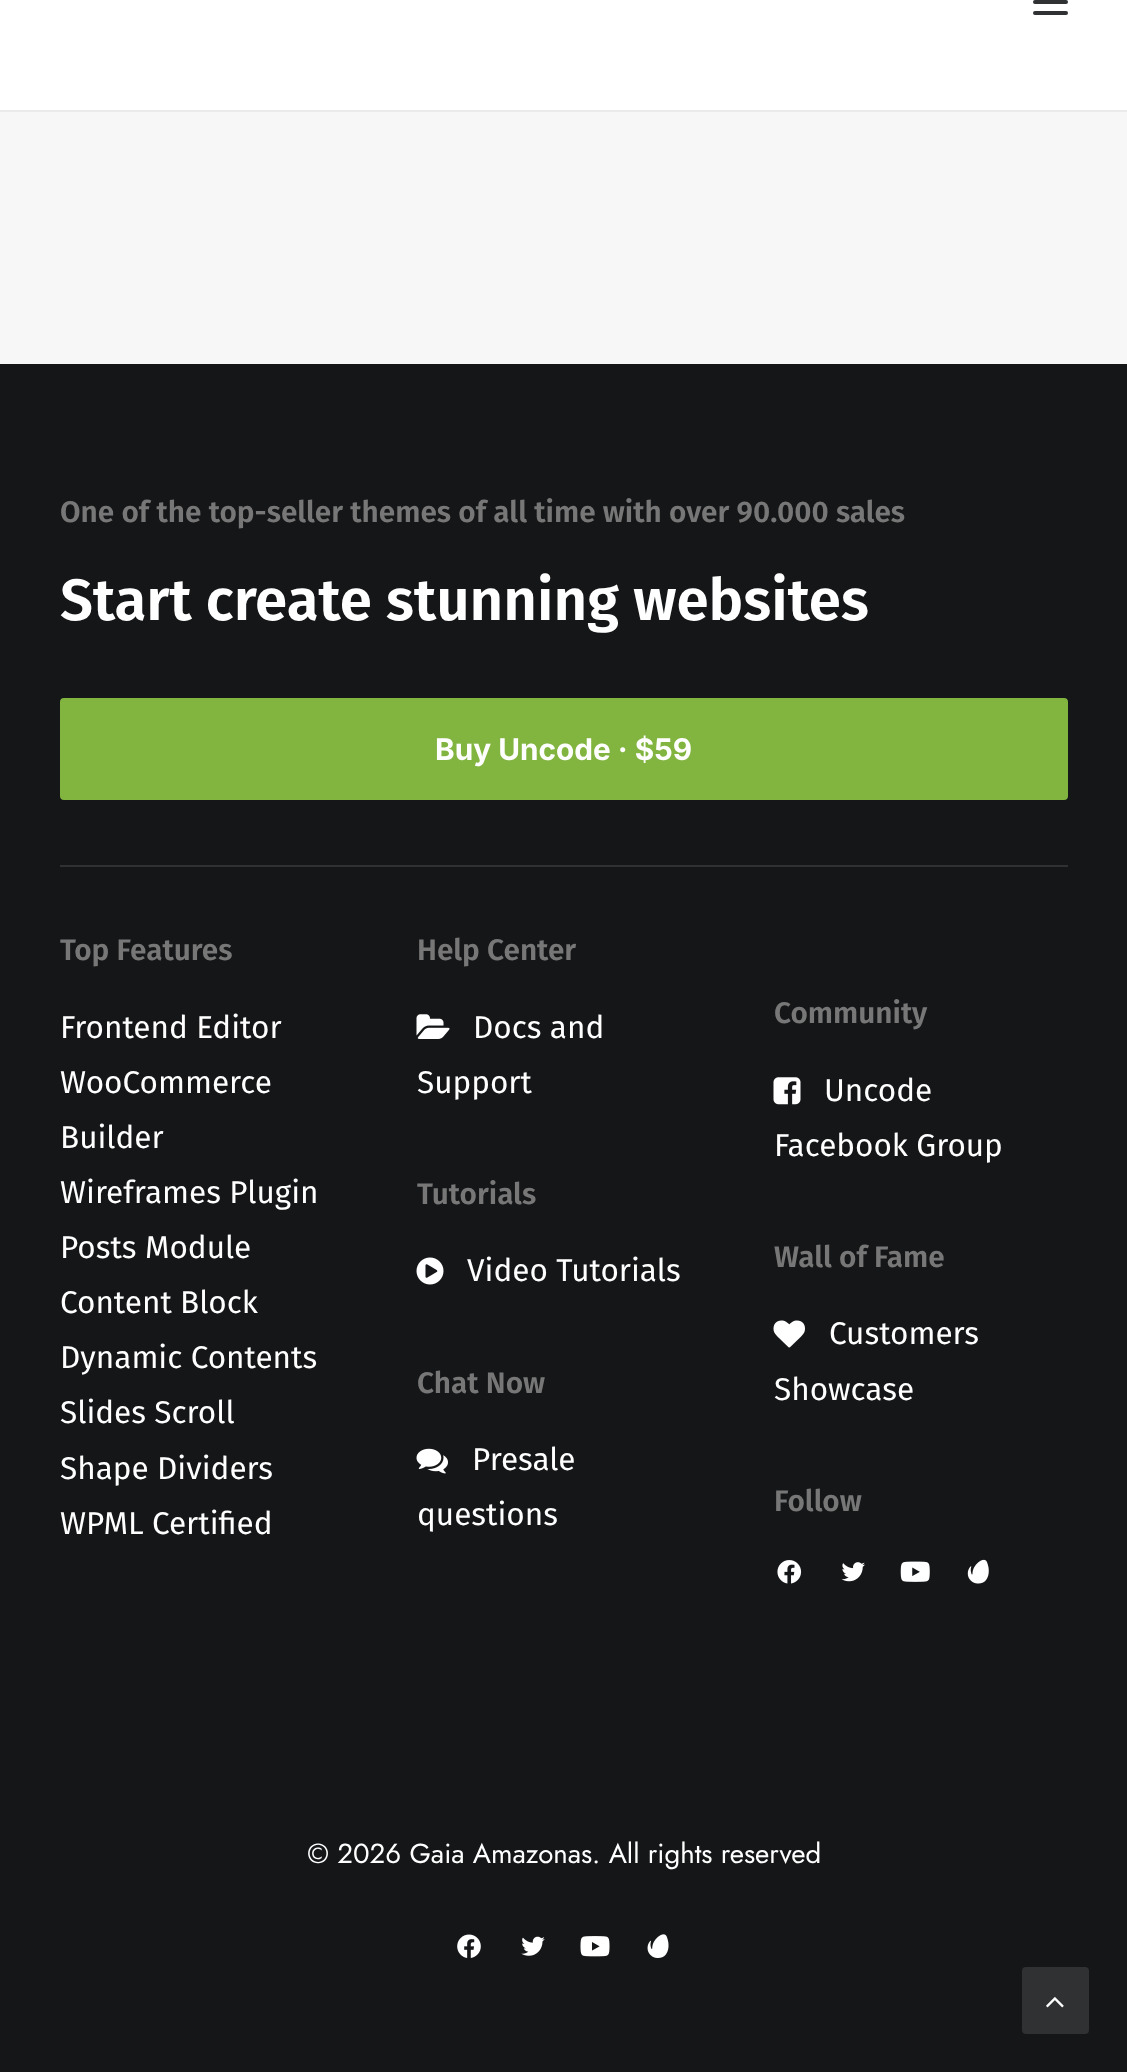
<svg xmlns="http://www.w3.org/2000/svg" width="1127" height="2072">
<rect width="100%" height="100%" fill="#141618"/>
<rect width="1127" height="110" fill="#fff"/>
<rect y="110" width="1127" height="2" fill="#ebebeb"/>
<rect x="1033" width="35" height="4" rx="2" fill="#303133"/>
<rect x="1033" y="11" width="35" height="4" rx="2" fill="#303133"/>
<rect y="112" width="1127" height="252" fill="#f7f7f7"/>
<text x="60" y="522" style="font-family:Fira Sans;font-size:29.75px;font-weight:600;fill:#777">One of the top-seller themes of all time with over 90.000 sales</text>
<text x="60" y="620" style="font-family:Fira Sans;font-size:58.3px;font-weight:600;fill:#fff">Start create stunning websites</text>
<rect x="61" y="699" width="1006" height="100" rx="3" fill="#82b440" stroke="#82b440" stroke-width="2"/>
<text x="435" y="760" style="font-family:Inter;font-size:29.75px;font-weight:bold;fill:#fff">Buy Uncode · $59</text>
<rect x="60" y="865" width="1008" height="2" fill="#303133"/>
<text x="60" y="960" style="font-family:Fira Sans;font-size:29.75px;font-weight:600;fill:#777">Top Features</text>
<text x="60" y="1038" style="font-family:Fira Sans;font-size:31.5px;fill:#fff">Frontend Editor</text>
<text x="60" y="1093" style="font-family:Fira Sans;font-size:31.5px;fill:#fff">WooCommerce</text>
<text x="60" y="1148" style="font-family:Fira Sans;font-size:31.5px;fill:#fff">Builder</text>
<text x="60" y="1203" style="font-family:Fira Sans;font-size:31.5px;fill:#fff">Wireframes Plugin</text>
<text x="60" y="1258" style="font-family:Fira Sans;font-size:31.5px;fill:#fff">Posts Module</text>
<text x="60" y="1313" style="font-family:Fira Sans;font-size:31.5px;fill:#fff">Content Block</text>
<text x="60" y="1368" style="font-family:Fira Sans;font-size:31.5px;fill:#fff">Dynamic Contents</text>
<text x="60" y="1423" style="font-family:Fira Sans;font-size:31.5px;fill:#fff">Slides Scroll</text>
<text x="60" y="1479" style="font-family:Fira Sans;font-size:31.5px;fill:#fff">Shape Dividers</text>
<text x="60" y="1534" style="font-family:Fira Sans;font-size:31.5px;fill:#fff">WPML Certified</text>
<text x="417" y="960" style="font-family:Fira Sans;font-size:29.75px;font-weight:600;fill:#777">Help Center</text>
<image x="416" y="1014" width="34" height="25" href="media/1.png"/>
<text x="473" y="1038" style="font-family:Fira Sans;font-size:31.5px;fill:#fff">Docs and</text>
<text x="417" y="1093" style="font-family:Fira Sans;font-size:31.5px;fill:#fff">Support</text>
<text x="417" y="1204" style="font-family:Fira Sans;font-size:29.75px;font-weight:600;fill:#777">Tutorials</text>
<image x="416" y="1257" width="28" height="28" href="media/2.png"/>
<text x="467" y="1281" style="font-family:Fira Sans;font-size:31.5px;fill:#fff">Video Tutorials</text>
<text x="417" y="1393" style="font-family:Fira Sans;font-size:29.75px;font-weight:600;fill:#777">Chat Now</text>
<image x="416" y="1448" width="32" height="26" href="media/3.png"/>
<text x="472" y="1470" style="font-family:Fira Sans;font-size:31.5px;fill:#fff">Presale</text>
<text x="417" y="1525" style="font-family:Fira Sans;font-size:31.5px;fill:#fff">questions</text>
<text x="774" y="1023" style="font-family:Fira Sans;font-size:29.75px;font-weight:600;fill:#777">Community</text>
<image x="773" y="1077" width="28" height="28" href="media/4.png"/>
<text x="824" y="1101" style="font-family:Fira Sans;font-size:31.5px;fill:#fff">Uncode</text>
<text x="774" y="1156" style="font-family:Fira Sans;font-size:31.5px;fill:#fff">Facebook Group</text>
<text x="774" y="1267" style="font-family:Fira Sans;font-size:29.75px;font-weight:600;fill:#777">Wall of Fame</text>
<image x="773" y="1320" width="32" height="28" href="media/5.png"/>
<text x="829" y="1344" style="font-family:Fira Sans;font-size:31.5px;fill:#fff">Customers</text>
<text x="774" y="1400" style="font-family:Fira Sans;font-size:31.5px;fill:#fff">Showcase</text>
<text x="774" y="1511" style="font-family:Fira Sans;font-size:29.75px;font-weight:600;fill:#777">Follow</text>
<image x="777" y="1560" width="25" height="24" href="media/6.png"/>
<image x="841" y="1562" width="24" height="20" href="media/7.png"/>
<image x="900" y="1561" width="30" height="21" href="media/8.png"/>
<image x="967" y="1559" width="22" height="25" href="media/9.png"/>
<text x="307" y="1863" style="font-family:Jost;font-size:27.6px;fill:#fff">© 2026 Gaia Amazonas. All rights reserved</text>
<image x="457" y="1934" width="24" height="24" href="media/10.png"/>
<image x="521" y="1936" width="24" height="20" href="media/11.png"/>
<image x="580" y="1936" width="30" height="21" href="media/12.png"/>
<image x="647" y="1934" width="22" height="24" href="media/13.png"/>
<rect x="1023" y="1968" width="65" height="65" rx="3" fill="#303133" stroke="#303133" stroke-width="2"/>
<image x="1046" y="1997" width="18" height="11" href="media/14.png"/>
</svg>
